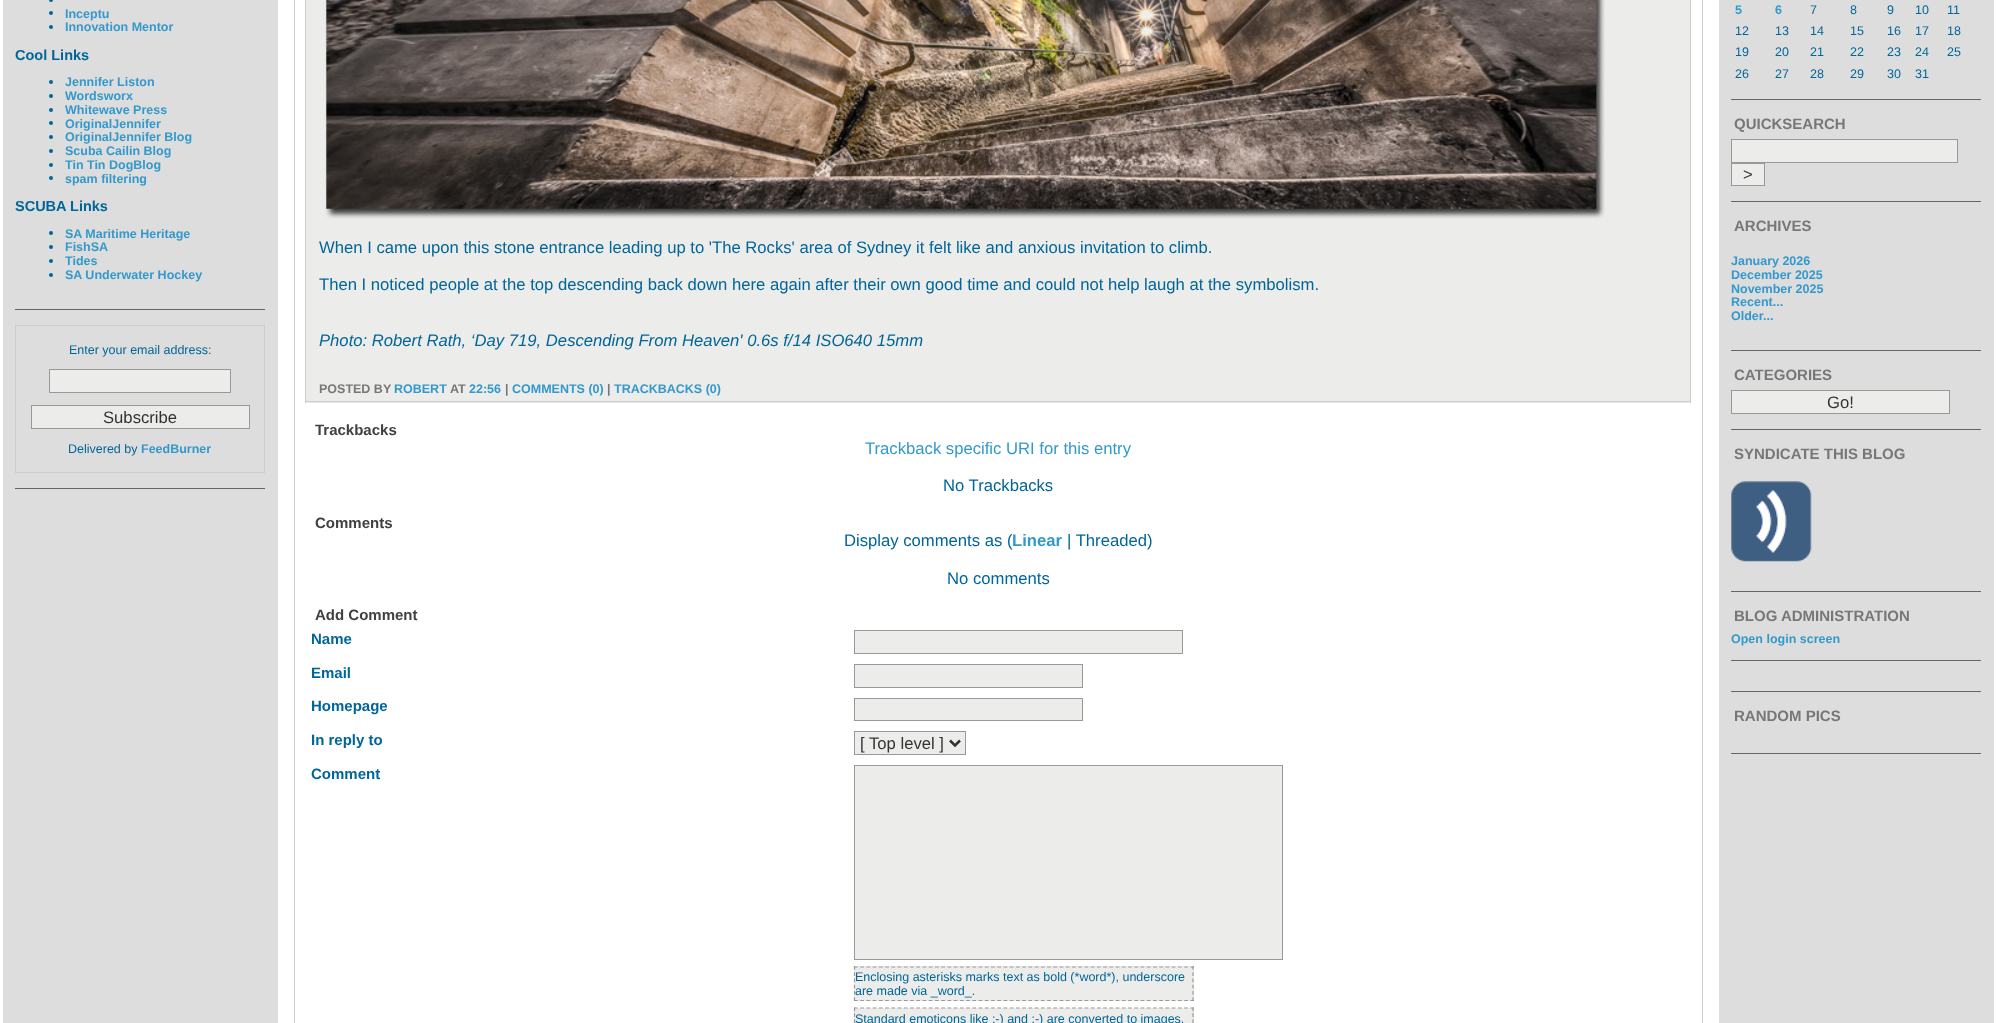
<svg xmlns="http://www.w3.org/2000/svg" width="1996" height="1023">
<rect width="100%" height="100%" fill="#fff"/>
<rect x="3" width="275" height="1023" fill="#ddd"/>
<rect x="15" y="309" width="250" height="1" fill="#666"/>
<circle cx="51" cy="0" r="2" fill="#069"/>
<circle cx="51" cy="13" r="2" fill="#069"/>
<text x="65" y="18" style="font-family:Liberation Sans;font-size:12.5px;font-weight:bold;fill:#39c">Inceptu</text>
<circle cx="51" cy="27" r="2" fill="#069"/>
<text x="65" y="31" style="font-family:Liberation Sans;font-size:12.5px;font-weight:bold;fill:#39c">Innovation Mentor</text>
<text x="15" y="60" style="font-family:Liberation Sans;font-size:14.5px;font-weight:bold;fill:#069">Cool Links</text>
<circle cx="51" cy="82" r="2" fill="#069"/>
<text x="65" y="86" style="font-family:Liberation Sans;font-size:12.5px;font-weight:bold;fill:#39c">Jennifer Liston</text>
<circle cx="51" cy="96" r="2" fill="#069"/>
<text x="65" y="100" style="font-family:Liberation Sans;font-size:12.5px;font-weight:bold;fill:#39c">Wordsworx</text>
<circle cx="51" cy="110" r="2" fill="#069"/>
<text x="65" y="114" style="font-family:Liberation Sans;font-size:12.5px;font-weight:bold;fill:#39c">Whitewave Press</text>
<circle cx="51" cy="123" r="2" fill="#069"/>
<text x="65" y="128" style="font-family:Liberation Sans;font-size:12.5px;font-weight:bold;fill:#39c">OriginalJennifer</text>
<circle cx="51" cy="137" r="2" fill="#069"/>
<text x="65" y="141" style="font-family:Liberation Sans;font-size:12.5px;font-weight:bold;fill:#39c">OriginalJennifer Blog</text>
<circle cx="51" cy="151" r="2" fill="#069"/>
<text x="65" y="155" style="font-family:Liberation Sans;font-size:12.5px;font-weight:bold;fill:#39c">Scuba Cailin Blog</text>
<circle cx="51" cy="165" r="2" fill="#069"/>
<text x="65" y="169" style="font-family:Liberation Sans;font-size:12.5px;font-weight:bold;fill:#39c">Tin Tin DogBlog</text>
<circle cx="51" cy="178" r="2" fill="#069"/>
<text x="65" y="183" style="font-family:Liberation Sans;font-size:12.5px;font-weight:bold;fill:#39c">spam filtering</text>
<text x="15" y="211" style="font-family:Liberation Sans;font-size:14.5px;font-weight:bold;fill:#069">SCUBA Links</text>
<circle cx="51" cy="233" r="2" fill="#069"/>
<text x="65" y="238" style="font-family:Liberation Sans;font-size:12.5px;font-weight:bold;fill:#39c">SA Maritime Heritage</text>
<circle cx="51" cy="247" r="2" fill="#069"/>
<text x="65" y="251" style="font-family:Liberation Sans;font-size:12.5px;font-weight:bold;fill:#39c">FishSA</text>
<circle cx="51" cy="261" r="2" fill="#069"/>
<text x="65" y="265" style="font-family:Liberation Sans;font-size:12.5px;font-weight:bold;fill:#39c">Tides</text>
<circle cx="51" cy="275" r="2" fill="#069"/>
<text x="65" y="279" style="font-family:Liberation Sans;font-size:12.5px;font-weight:bold;fill:#39c">SA Underwater Hockey</text>
<rect x="15" y="488" width="250" height="1" fill="#666"/>
<rect x="15.5" y="325.5" width="249" height="147" fill="none" stroke="#ccc"/>
<text x="69" y="354" style="font-family:Liberation Sans;font-size:12.5px;fill:#069">Enter your email address:</text>
<rect x="49.5" y="369.5" width="181" height="23" fill="#ececea" stroke="#999"/>
<rect x="31.5" y="405.5" width="218" height="23" fill="#ececea" stroke="#999"/>
<text x="103" y="423" style="font-family:Liberation Sans;font-size:16.67px;fill:#333">Subscribe</text>
<text x="68" y="453" style="font-family:Liberation Sans;font-size:12.5px;fill:#069">Delivered by</text>
<text x="141" y="453" style="font-family:Liberation Sans;font-size:12.5px;font-weight:bold;fill:#39c">FeedBurner</text>
<rect x="294.5" y="-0.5" width="1408" height="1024" fill="none" stroke="#ccc"/>
<rect x="306" width="1384" height="403" fill="#ececea"/>
<rect x="1690" width="1" height="403" fill="#ccc"/>
<rect x="305" y="401" width="1386" height="1" fill="#ccc"/>
<rect x="305" width="1" height="403" fill="#ccc"/>
<image x="325" y="0" width="1280" height="219" href="media/1.png"/>
<text x="319" y="253" style="font-family:Liberation Sans;font-size:16.67px;fill:#069">When I came upon this stone entrance leading up to 'The Rocks' area of Sydney it felt like and anxious invitation to climb.</text>
<text x="319" y="290" style="font-family:Liberation Sans;font-size:16.67px;fill:#069">Then I noticed people at the top descending back down here again after their own good time and could not help laugh at the symbolism.</text>
<text x="319" y="346" style="font-family:Liberation Sans;font-size:16.67px;font-style:italic;fill:#069">Photo: Robert Rath, ‘Day 719, Descending From Heaven' 0.6s f/14 ISO640 15mm</text>
<text x="319" y="393" style="font-family:Liberation Sans;font-size:12.5px;font-weight:bold;fill:#777">POSTED BY</text>
<text x="394" y="393" style="font-family:Liberation Sans;font-size:12.5px;font-weight:bold;fill:#39c">ROBERT</text>
<text x="450" y="393" style="font-family:Liberation Sans;font-size:12.5px;font-weight:bold;fill:#777">AT</text>
<text x="469" y="393" style="font-family:Liberation Sans;font-size:12.5px;font-weight:bold;fill:#39c">22:56</text>
<text x="505" y="393" style="font-family:Liberation Sans;font-size:12.5px;font-weight:bold;fill:#777">|</text>
<text x="512" y="393" style="font-family:Liberation Sans;font-size:12.5px;font-weight:bold;fill:#39c">COMMENTS (0)</text>
<text x="607" y="393" style="font-family:Liberation Sans;font-size:12.5px;font-weight:bold;fill:#777">|</text>
<text x="614" y="393" style="font-family:Liberation Sans;font-size:12.5px;font-weight:bold;fill:#39c">TRACKBACKS (0)</text>
<text x="315" y="435" style="font-family:Liberation Sans;font-size:15px;font-weight:bold;fill:#404040">Trackbacks</text>
<text x="865" y="454" style="font-family:Liberation Sans;font-size:16.67px;fill:#39c">Trackback specific URI for this entry</text>
<text x="943" y="491" style="font-family:Liberation Sans;font-size:16.67px;fill:#069">No Trackbacks</text>
<text x="315" y="528" style="font-family:Liberation Sans;font-size:15px;font-weight:bold;fill:#404040">Comments</text>
<text x="844" y="546" style="font-family:Liberation Sans;font-size:16.67px;fill:#069">Display comments as (</text>
<text x="1012" y="546" style="font-family:Liberation Sans;font-size:16.67px;font-weight:bold;fill:#39c">Linear</text>
<text x="1067" y="546" style="font-family:Liberation Sans;font-size:16.67px;fill:#069">| Threaded)</text>
<text x="947" y="584" style="font-family:Liberation Sans;font-size:16.67px;fill:#069">No comments</text>
<text x="315" y="620" style="font-family:Liberation Sans;font-size:15px;font-weight:bold;fill:#404040">Add Comment</text>
<text x="311" y="644" style="font-family:Liberation Sans;font-size:15px;font-weight:bold;fill:#069">Name</text>
<rect x="854.5" y="630.5" width="328" height="23" fill="#ececea" stroke="#999"/>
<text x="311" y="678" style="font-family:Liberation Sans;font-size:15px;font-weight:bold;fill:#069">Email</text>
<rect x="854.5" y="664.5" width="228" height="23" fill="#ececea" stroke="#999"/>
<text x="311" y="711" style="font-family:Liberation Sans;font-size:15px;font-weight:bold;fill:#069">Homepage</text>
<rect x="854.5" y="698.5" width="228" height="22" fill="#ececea" stroke="#999"/>
<text x="311" y="745" style="font-family:Liberation Sans;font-size:15px;font-weight:bold;fill:#069">In reply to</text>
<rect x="854.5" y="731.5" width="111" height="23" fill="#ececea" stroke="#999"/>
<path d="M950 740.5l5 5l5-5" fill="none" stroke="#333" stroke-width="2.5"/>
<text x="860" y="749" style="font-family:Liberation Sans;font-size:16.67px;fill:#333">[ Top level ]</text>
<text x="311" y="779" style="font-family:Liberation Sans;font-size:15px;font-weight:bold;fill:#069">Comment</text>
<rect x="854.5" y="765.5" width="428" height="194" fill="#ececea" stroke="#999"/>
<rect x="854" y="966" width="340" height="35" fill="#ececea"/>
<path d="M854 967h340" fill="none" stroke="#999" stroke-width="1.2" stroke-dasharray="3.75 2.48"/>
<path d="M1193 966v35" fill="none" stroke="#999" stroke-width="1.2" stroke-dasharray="3.75 2.5"/>
<path d="M854 1000.5h340" fill="none" stroke="#999" stroke-width="1.2" stroke-dasharray="3.75 2.48"/>
<path d="M854.5 966v35" fill="none" stroke="#999" stroke-width="1.2" stroke-dasharray="3.75 2.5"/>
<text x="855" y="981" style="font-family:Liberation Sans;font-size:12.5px;fill:#069">Enclosing asterisks marks text as bold (*word*), underscore</text>
<text x="855" y="995" style="font-family:Liberation Sans;font-size:12.5px;fill:#069">are made via _word_.</text>
<rect x="854" y="1008" width="340" height="15" fill="#ececea"/>
<path d="M854 1008h340" fill="none" stroke="#999" stroke-width="1.2" stroke-dasharray="3.75 2.48"/>
<path d="M1193 1007.5v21.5" fill="none" stroke="#999" stroke-width="1.2" stroke-dasharray="3.75 2.09"/>
<path d="M854.5 1007.5v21.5" fill="none" stroke="#999" stroke-width="1.2" stroke-dasharray="3.75 2.09"/>
<text x="855" y="1023" style="font-family:Liberation Sans;font-size:12.5px;fill:#069">Standard emoticons like :-) and ;-) are converted to images.</text>
<rect x="1719" width="275" height="1023" fill="#ddd"/>
<rect x="1731" y="99" width="250" height="1" fill="#666"/>
<text x="1735" y="14" style="font-family:Liberation Sans;font-size:12.5px;font-weight:bold;fill:#39c">5</text>
<text x="1775" y="14" style="font-family:Liberation Sans;font-size:12.5px;font-weight:bold;fill:#39c">6</text>
<text x="1810" y="14" style="font-family:Liberation Sans;font-size:12.5px;fill:#069">7</text>
<text x="1850" y="14" style="font-family:Liberation Sans;font-size:12.5px;fill:#069">8</text>
<text x="1887" y="14" style="font-family:Liberation Sans;font-size:12.5px;fill:#069">9</text>
<text x="1915" y="14" style="font-family:Liberation Sans;font-size:12.5px;fill:#069">10</text>
<text x="1947" y="14" style="font-family:Liberation Sans;font-size:12.5px;fill:#069">11</text>
<text x="1735" y="35" style="font-family:Liberation Sans;font-size:12.5px;fill:#069">12</text>
<text x="1775" y="35" style="font-family:Liberation Sans;font-size:12.5px;fill:#069">13</text>
<text x="1810" y="35" style="font-family:Liberation Sans;font-size:12.5px;fill:#069">14</text>
<text x="1850" y="35" style="font-family:Liberation Sans;font-size:12.5px;fill:#069">15</text>
<text x="1887" y="35" style="font-family:Liberation Sans;font-size:12.5px;fill:#069">16</text>
<text x="1915" y="35" style="font-family:Liberation Sans;font-size:12.5px;fill:#069">17</text>
<text x="1947" y="35" style="font-family:Liberation Sans;font-size:12.5px;fill:#069">18</text>
<text x="1735" y="56" style="font-family:Liberation Sans;font-size:12.5px;fill:#069">19</text>
<text x="1775" y="56" style="font-family:Liberation Sans;font-size:12.5px;fill:#069">20</text>
<text x="1810" y="56" style="font-family:Liberation Sans;font-size:12.5px;fill:#069">21</text>
<text x="1850" y="56" style="font-family:Liberation Sans;font-size:12.5px;fill:#069">22</text>
<text x="1887" y="56" style="font-family:Liberation Sans;font-size:12.5px;fill:#069">23</text>
<text x="1915" y="56" style="font-family:Liberation Sans;font-size:12.5px;fill:#069">24</text>
<text x="1947" y="56" style="font-family:Liberation Sans;font-size:12.5px;fill:#069">25</text>
<text x="1735" y="78" style="font-family:Liberation Sans;font-size:12.5px;fill:#069">26</text>
<text x="1775" y="78" style="font-family:Liberation Sans;font-size:12.5px;fill:#069">27</text>
<text x="1810" y="78" style="font-family:Liberation Sans;font-size:12.5px;fill:#069">28</text>
<text x="1850" y="78" style="font-family:Liberation Sans;font-size:12.5px;fill:#069">29</text>
<text x="1887" y="78" style="font-family:Liberation Sans;font-size:12.5px;fill:#069">30</text>
<text x="1915" y="78" style="font-family:Liberation Sans;font-size:12.5px;fill:#069">31</text>
<rect x="1731" y="201" width="250" height="1" fill="#666"/>
<text x="1734" y="129" style="font-family:Liberation Sans;font-size:15px;font-weight:bold;fill:#777">QUICKSEARCH</text>
<rect x="1731.5" y="139.5" width="226" height="23" fill="#ececea" stroke="#999"/>
<rect x="1731.5" y="163.5" width="33" height="22" fill="#ececea" stroke="#999"/>
<text x="1743" y="180" style="font-family:Liberation Sans;font-size:16.67px;fill:#333">&gt;</text>
<rect x="1731" y="350" width="250" height="1" fill="#666"/>
<text x="1734" y="231" style="font-family:Liberation Sans;font-size:15px;font-weight:bold;fill:#777">ARCHIVES</text>
<text x="1731" y="265" style="font-family:Liberation Sans;font-size:12.5px;font-weight:bold;fill:#39c">January 2026</text>
<text x="1731" y="279" style="font-family:Liberation Sans;font-size:12.5px;font-weight:bold;fill:#39c">December 2025</text>
<text x="1731" y="293" style="font-family:Liberation Sans;font-size:12.5px;font-weight:bold;fill:#39c">November 2025</text>
<text x="1731" y="306" style="font-family:Liberation Sans;font-size:12.5px;font-weight:bold;fill:#39c">Recent...</text>
<text x="1731" y="320" style="font-family:Liberation Sans;font-size:12.5px;font-weight:bold;fill:#39c">Older...</text>
<rect x="1731" y="429" width="250" height="1" fill="#666"/>
<text x="1734" y="380" style="font-family:Liberation Sans;font-size:15px;font-weight:bold;fill:#777">CATEGORIES</text>
<rect x="1731.5" y="390.5" width="218" height="23" fill="#ececea" stroke="#999"/>
<text x="1827" y="408" style="font-family:Liberation Sans;font-size:16.67px;fill:#333">Go!</text>
<rect x="1731" y="591" width="250" height="1" fill="#666"/>
<text x="1734" y="459" style="font-family:Liberation Sans;font-size:15px;font-weight:bold;fill:#777">SYNDICATE THIS BLOG</text>
<image x="1731" y="481" width="81" height="81" href="media/2.png"/>
<rect x="1731" y="660" width="250" height="1" fill="#666"/>
<text x="1734" y="621" style="font-family:Liberation Sans;font-size:15px;font-weight:bold;fill:#777">BLOG ADMINISTRATION</text>
<text x="1731" y="643" style="font-family:Liberation Sans;font-size:12.5px;font-weight:bold;fill:#39c">Open login screen</text>
<rect x="1731" y="691" width="250" height="1" fill="#666"/>
<rect x="1731" y="753" width="250" height="1" fill="#666"/>
<text x="1734" y="721" style="font-family:Liberation Sans;font-size:15px;font-weight:bold;fill:#777">RANDOM PICS</text>
</svg>
